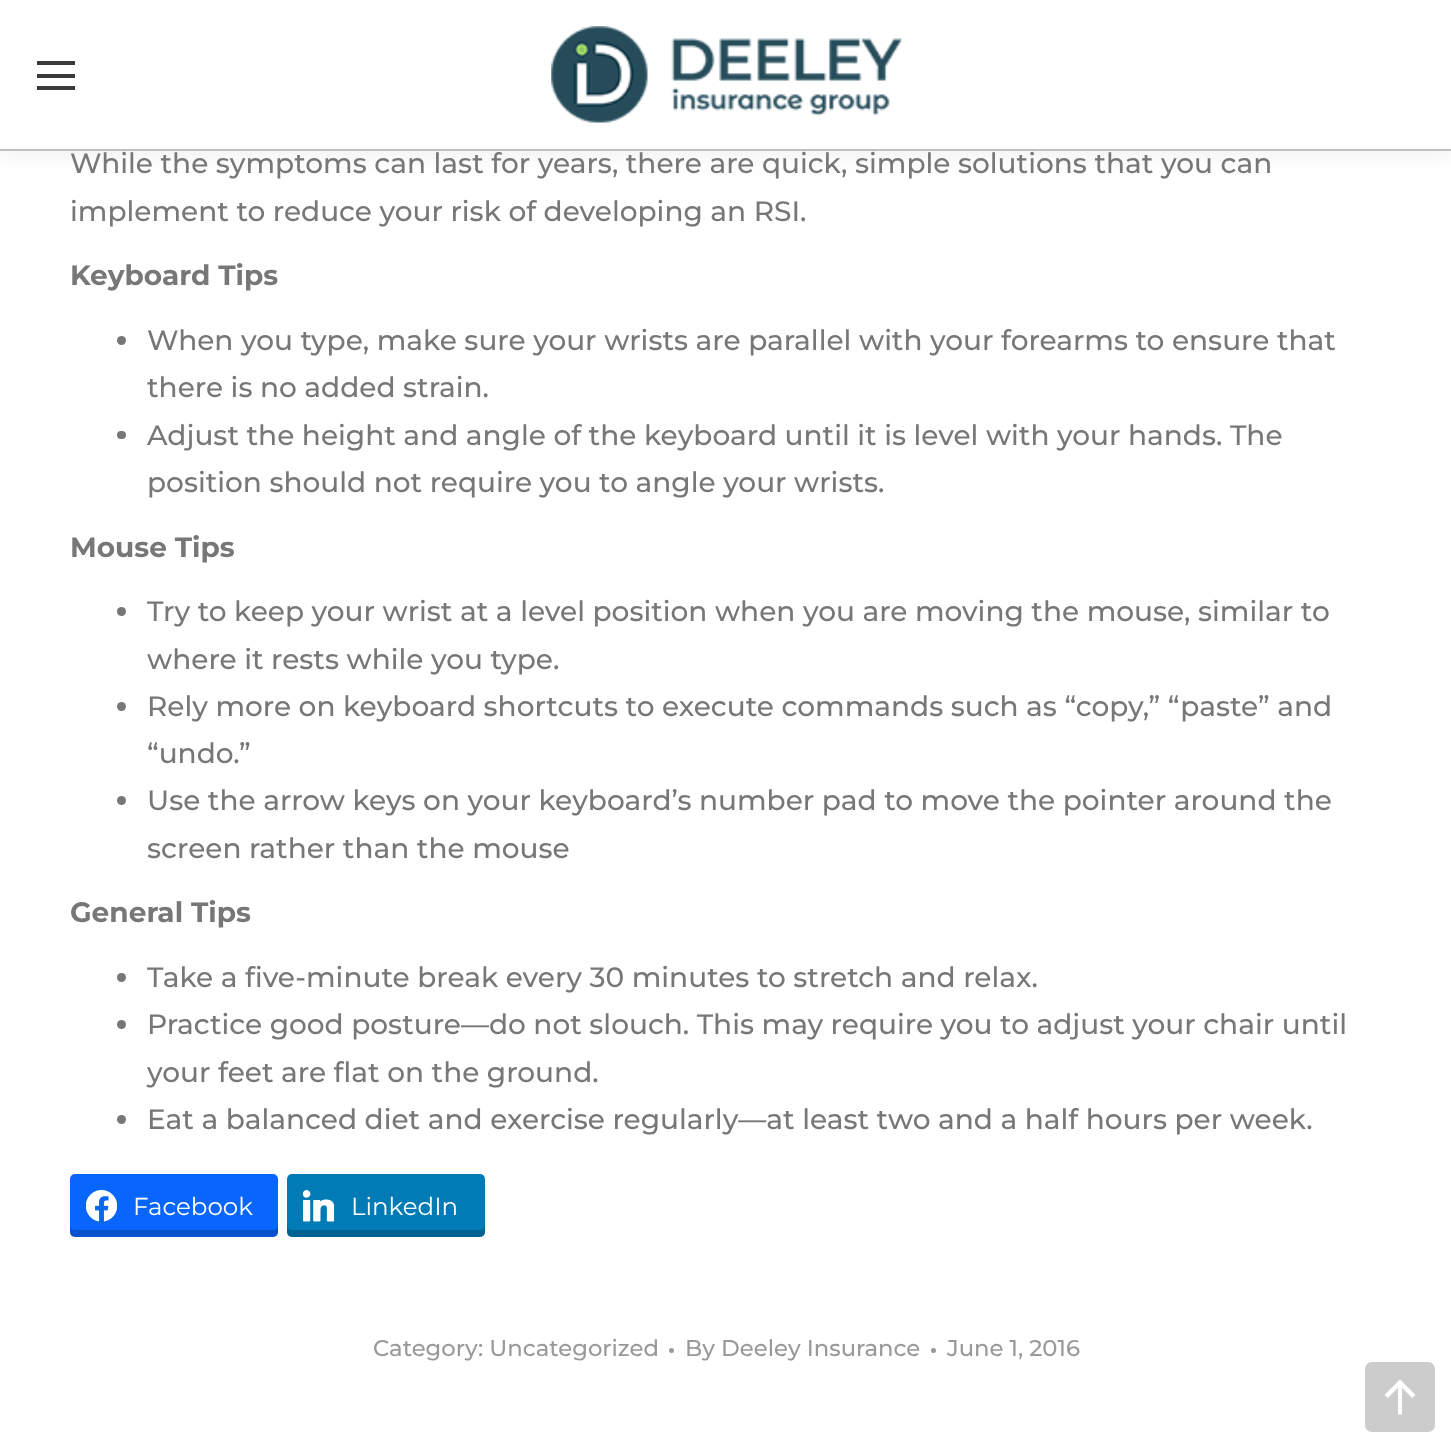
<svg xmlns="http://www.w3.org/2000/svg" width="1451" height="1448">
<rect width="100%" height="100%" fill="#fff"/>
<rect x="-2" y="-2" width="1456" height="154" fill="#00000012" filter="blur(13px)"/>
<rect width="1451" height="149" fill="#fff"/>
<rect y="149" width="1451" height="2" fill="#c0c0c0"/>
<rect x="37" y="61" width="38" height="4" fill="#3a3a3a"/>
<rect x="37" y="74" width="38" height="4" fill="#3a3a3a"/>
<rect x="37" y="86" width="38" height="4" fill="#3a3a3a"/>
<image x="551" y="26" width="351" height="97" href="media/1.png"/>
<text x="70" y="173" style="font-family:Montserrat;font-size:28px;font-weight:500;fill:#777">While the symptoms can last for years, there are quick, simple solutions that you can</text>
<text x="70" y="221" style="font-family:Montserrat;font-size:28px;font-weight:500;fill:#777">implement to reduce your risk of developing an RSI.</text>
<text x="70" y="285" style="font-family:Montserrat;font-size:28px;font-weight:bold;fill:#777">Keyboard Tips</text>
<circle cx="121.5" cy="340.5" r="4.5" fill="#777"/>
<text x="147" y="350" style="font-family:Montserrat;font-size:28px;font-weight:500;fill:#777">When you type, make sure your wrists are parallel with your forearms to ensure that</text>
<text x="147" y="397" style="font-family:Montserrat;font-size:28px;font-weight:500;fill:#777">there is no added strain.</text>
<rect x="117" y="431" width="9" height="8" rx="4" fill="#777"/>
<text x="147" y="445" style="font-family:Montserrat;font-size:28px;font-weight:500;fill:#777">Adjust the height and angle of the keyboard until it is level with your hands. The</text>
<text x="147" y="492" style="font-family:Montserrat;font-size:28px;font-weight:500;fill:#777">position should not require you to angle your wrists.</text>
<text x="70" y="557" style="font-family:Montserrat;font-size:28px;font-weight:bold;fill:#777">Mouse Tips</text>
<circle cx="121.5" cy="611.5" r="4.5" fill="#777"/>
<text x="147" y="621" style="font-family:Montserrat;font-size:28px;font-weight:500;fill:#777">Try to keep your wrist at a level position when you are moving the mouse, similar to</text>
<text x="147" y="669" style="font-family:Montserrat;font-size:28px;font-weight:500;fill:#777">where it rests while you type.</text>
<circle cx="121.5" cy="706.5" r="4.5" fill="#777"/>
<text x="147" y="716" style="font-family:Montserrat;font-size:28px;font-weight:500;fill:#777">Rely more on keyboard shortcuts to execute commands such as “copy,” “paste” and</text>
<text x="147" y="763" style="font-family:Montserrat;font-size:28px;font-weight:500;fill:#777">“undo.”</text>
<circle cx="121.5" cy="800.5" r="4.5" fill="#777"/>
<text x="147" y="810" style="font-family:Montserrat;font-size:28px;font-weight:500;fill:#777">Use the arrow keys on your keyboard’s number pad to move the pointer around the</text>
<text x="147" y="858" style="font-family:Montserrat;font-size:28px;font-weight:500;fill:#777">screen rather than the mouse</text>
<text x="70" y="922" style="font-family:Montserrat;font-size:28px;font-weight:bold;fill:#777">General Tips</text>
<circle cx="121.5" cy="977.5" r="4.5" fill="#777"/>
<text x="147" y="987" style="font-family:Montserrat;font-size:28px;font-weight:500;fill:#777">Take a five-minute break every 30 minutes to stretch and relax.</text>
<circle cx="121.5" cy="1024.5" r="4.5" fill="#777"/>
<text x="147" y="1034" style="font-family:Montserrat;font-size:28px;font-weight:500;fill:#777">Practice good posture—do not slouch. This may require you to adjust your chair until</text>
<text x="147" y="1082" style="font-family:Montserrat;font-size:28px;font-weight:500;fill:#777">your feet are flat on the ground.</text>
<circle cx="121.5" cy="1119.5" r="4.5" fill="#777"/>
<text x="147" y="1129" style="font-family:Montserrat;font-size:28px;font-weight:500;fill:#777">Eat a balanced diet and exercise regularly—at least two and a half hours per week.</text>
<rect x="70" y="1174" width="208" height="63" rx="5" fill="#0866ff"/>
<path d="M70 1225v7c0 3 2 5 5 5h198c3 0 5-2 5-5v-7c0 3-2 5-5 5h-198c-3 0-5-2-5-5z" fill="#00000033"/>
<image x="86" y="1190" width="31" height="32" href="media/2.png"/>
<text x="133" y="1215" style="font-family:Montserrat;font-size:24.5px;font-weight:100;fill:#fff">Facebook</text>
<rect x="287" y="1174" width="198" height="63" rx="5" fill="#007bb6"/>
<path d="M287 1225v7c0 3 2 5 5 5h188c3 0 5-2 5-5v-7c0 3-3 5-5 5h-188c-3 0-5-2-5-5z" fill="#00000033"/>
<image x="303" y="1190" width="31" height="32" href="media/3.png"/>
<text x="351" y="1215" style="font-family:Montserrat;font-size:24.5px;font-weight:100;fill:#fff">LinkedIn</text>
<text x="373" y="1356" style="font-family:Montserrat;font-size:22.75px;font-weight:500;fill:#999">Category: Uncategorized</text>
<circle cx="671.5" cy="1350.5" r="2.5" fill="#999"/>
<text x="685" y="1356" style="font-family:Montserrat;font-size:22.75px;font-weight:500;fill:#999">By Deeley Insurance</text>
<circle cx="933.5" cy="1350.5" r="2.5" fill="#999"/>
<text x="947" y="1356" style="font-family:Montserrat;font-size:22.75px;font-weight:500;fill:#999">June 1, 2016</text>
<rect x="1365" y="1362" width="70" height="70" rx="7" fill="#ccc"/>
<path d="M1384.5 1395l3.5 3l10-10.5v27h4v-27l10 10.5l3.5-3l-15.5-15.5z" fill="#fff"/>
</svg>
